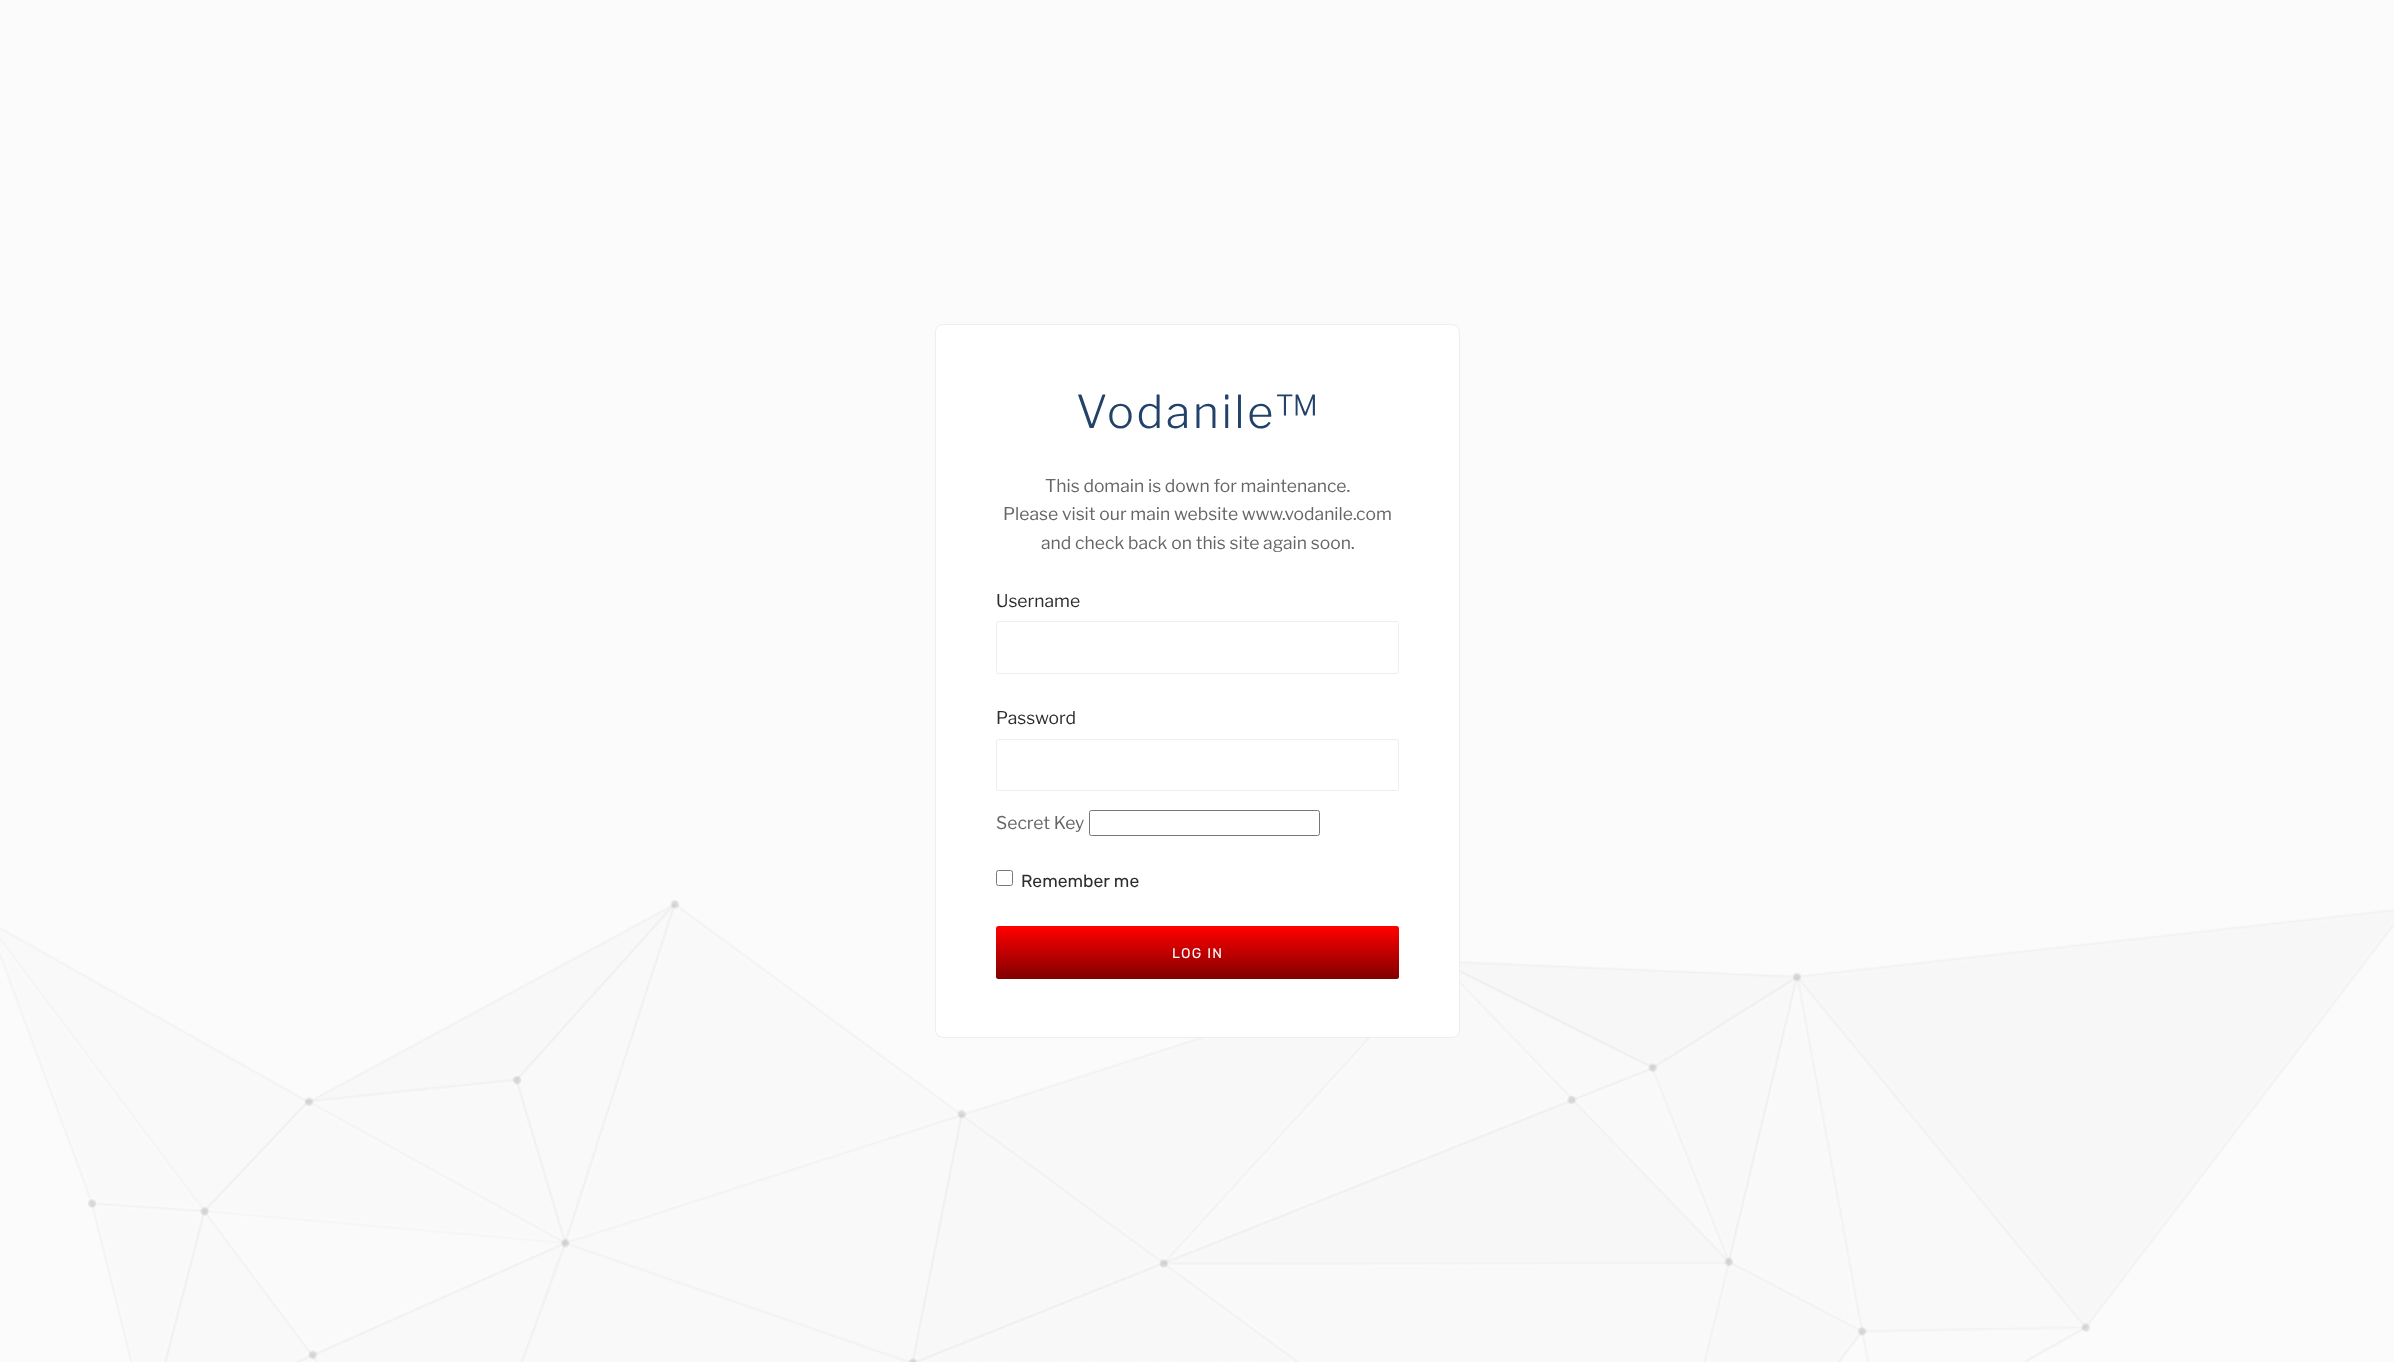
<svg xmlns="http://www.w3.org/2000/svg" width="2394" height="1362">
<defs>
<linearGradient id="g1" gradientUnits="userSpaceOnUse" x1="1198" y1="927" x2="1198" y2="979"><stop offset="0" stop-color="#f00"/><stop offset="1" stop-color="#800000"/></linearGradient>
</defs>
<rect width="100%" height="100%" fill="#fbfbfb"/>
<image x="0" y="900" width="2394" height="462" href="media/1.png"/>
<rect x="935.5" y="324.5" width="524" height="713" rx="7.5" fill="#fff" stroke="#eee"/>
<text x="1076" y="428" style="font-family:Libre Franklin;font-size:45px;font-weight:300;letter-spacing:2.5px;fill:#234269">Vodanile™</text>
<text x="1045" y="492" style="font-family:Libre Franklin;font-size:17.5px;fill:#666">This domain is down for maintenance.</text>
<text x="1003" y="520" style="font-family:Libre Franklin;font-size:17.5px;fill:#666">Please visit our main website www.vodanile.com</text>
<text x="1041" y="549" style="font-family:Libre Franklin;font-size:17.5px;fill:#666">and check back on this site again soon.</text>
<text x="996" y="607" style="font-family:Libre Franklin;font-size:17.5px;fill:#2d2d2d">Username</text>
<rect x="996.5" y="621.5" width="402" height="52" rx="2" fill="none" stroke="#eee"/>
<text x="996" y="724" style="font-family:Libre Franklin;font-size:17.5px;fill:#2d2d2d">Password</text>
<rect x="996.5" y="739.5" width="402" height="51" rx="2" fill="none" stroke="#eee"/>
<text x="996" y="829" style="font-family:Libre Franklin;font-size:17.5px;fill:#666">Secret Key</text>
<rect x="1089.5" y="810.5" width="230" height="25" rx="2" fill="none" stroke="#767676"/>
<rect x="996.5" y="870.5" width="16" height="15" rx="2" fill="none" stroke="#767676"/>
<text x="1021" y="887" style="font-family:Rubik;font-size:17.5px;fill:#2d2d2d">Remember me</text>
<rect x="996" y="926" width="403" height="53" rx="2.5" fill="url(#g1)"/>
<text x="1172" y="958" style="font-family:Rubik;font-size:14px;letter-spacing:1.25px;fill:#fff">LOG IN</text>
</svg>
